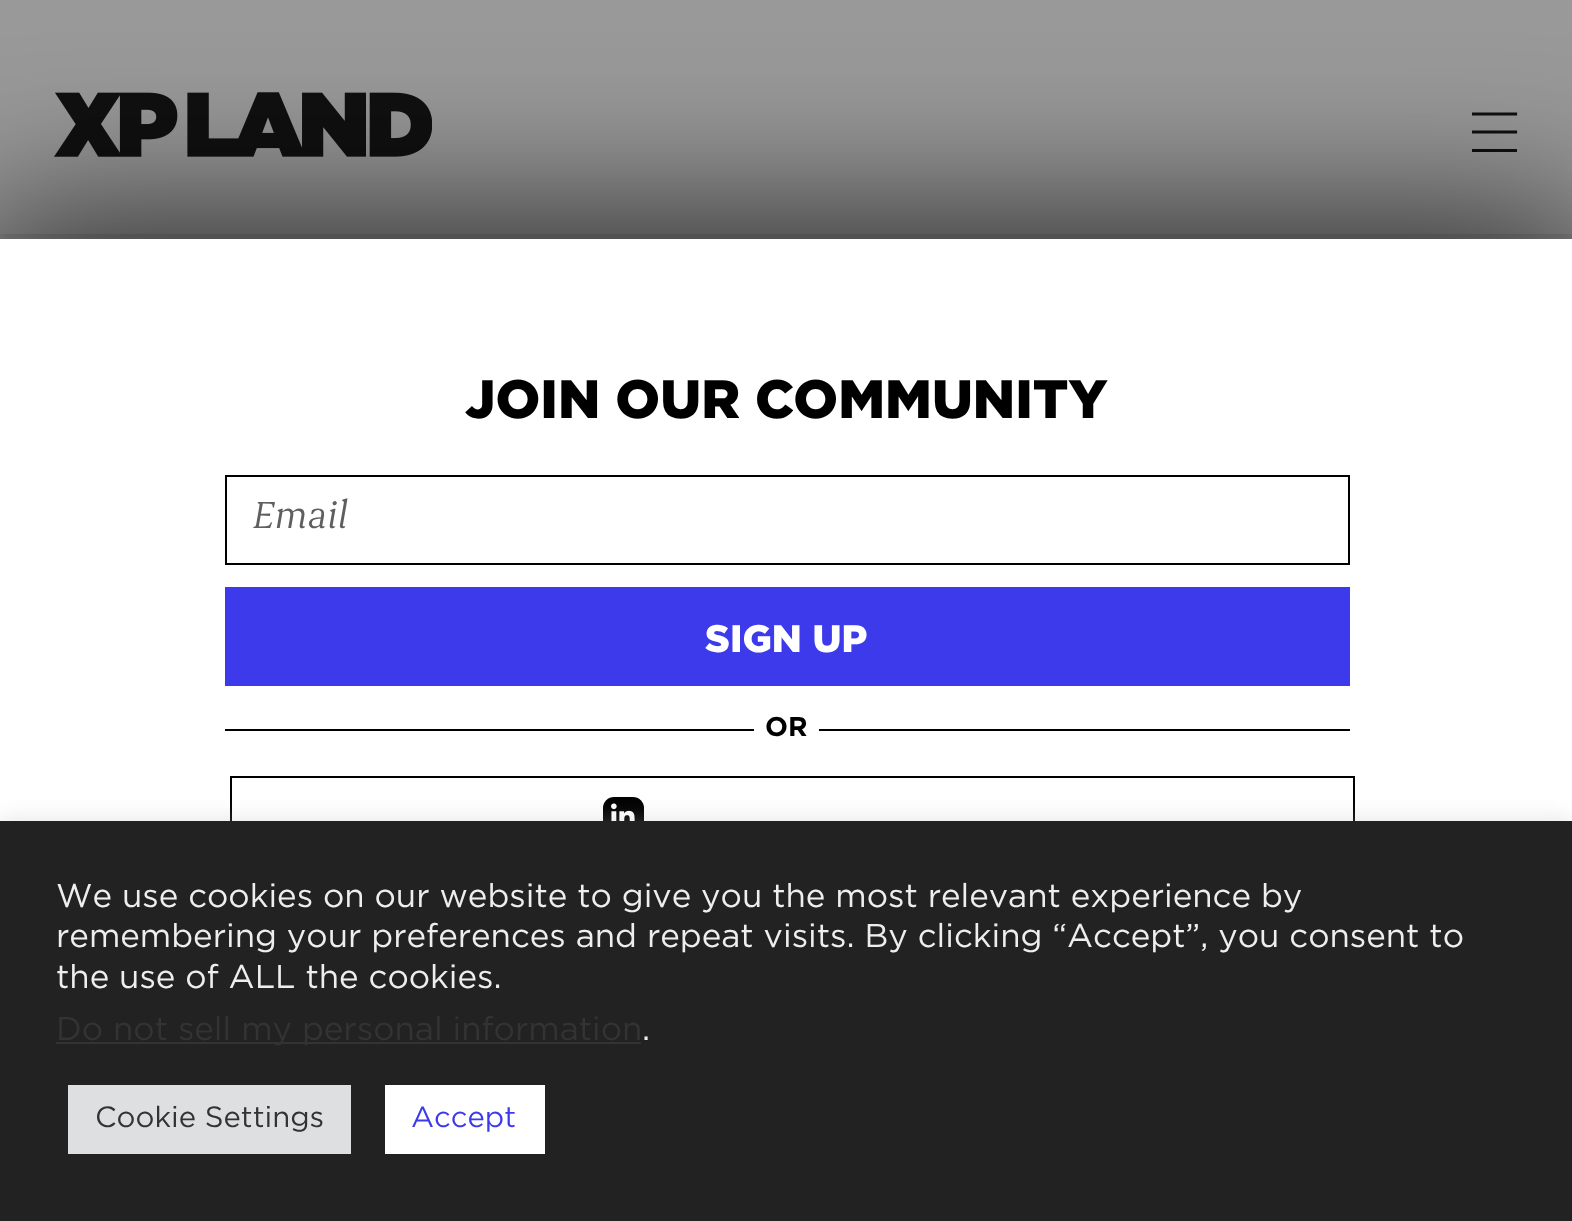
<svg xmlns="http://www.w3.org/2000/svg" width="1572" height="1221">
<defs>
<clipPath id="clip1"><rect x="1472" y="110" width="47" height="45"/></clipPath>
</defs>
<rect width="100%" height="100%" fill="#999"/>
<rect y="2" width="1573" height="237" fill="#0000001a" filter="blur(4.5px)"/>
<rect width="1572" height="234" fill="#999"/>
<image x="54" y="92" width="378" height="65" href="media/1.png"/>
<g clip-path="url(#clip1)">
<path d="M1473 114h42.5m-42.5 18h42.5" fill="none" stroke="#101010" stroke-width="3.2" stroke-linecap="square" stroke-linejoin="round"/>
</g>
<rect x="1472" y="149" width="45" height="3" fill="#101010"/>
<rect x="-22" y="216" width="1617" height="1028" fill="#000000b3" filter="blur(79px)"/>
<rect y="239" width="1572" height="582" fill="#fff"/>
<text x="465" y="418" style="font-family:Gotham;font-size:54px;font-weight:900;fill:#000">JOIN OUR COMMUNITY</text>
<rect x="226" y="476" width="1123" height="88" fill="none" stroke="#000" stroke-width="2"/>
<text x="253" y="528" style="font-family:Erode;font-size:43px;font-style:italic;fill:#5f5f5f">Email</text>
<rect x="225" y="587" width="1125" height="99" fill="#3d3aeb"/>
<text x="705" y="652" style="font-family:Gotham;font-size:38.25px;font-weight:900;fill:#fff">SIGN UP</text>
<rect x="225" y="729" width="529" height="2" fill="#000"/>
<text x="765" y="736" style="font-family:Gotham;font-size:27px;font-weight:bold;fill:#000">OR</text>
<rect x="819" y="729" width="531" height="2" fill="#000"/>
<rect x="231" y="777" width="1123" height="77" fill="none" stroke="#000" stroke-width="2"/>
<rect x="603" y="797" width="41" height="40" rx="11" fill="#000"/>
<image x="611" y="803" width="24" height="18" href="media/2.png"/>
<rect y="819" width="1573" height="401" fill="#acabab4d" filter="blur(11px)"/>
<rect y="821" width="1572" height="400" fill="#222"/>
<text x="56" y="907" style="font-family:Gotham;font-size:33px;fill:#eee">We use cookies on our website to give you the most relevant experience by</text>
<text x="56" y="947" style="font-family:Gotham;font-size:33px;fill:#eee">remembering your preferences and repeat visits. By clicking “Accept”, you consent to</text>
<text x="56" y="988" style="font-family:Gotham;font-size:33px;fill:#eee">the use of ALL the cookies.</text>
<rect x="56" y="1042" width="585" height="2" fill="#333"/>
<text x="56" y="1040" style="font-family:Gotham;font-size:33px;fill:#333">Do not sell my personal information</text>
<text x="642" y="1040" style="font-family:Gotham;font-size:33px;fill:#eee">.</text>
<rect x="68" y="1085" width="283" height="69" fill="#dedfe0"/>
<text x="95" y="1127" style="font-family:Gotham;font-size:29.25px;fill:#333">Cookie Settings</text>
<rect x="385" y="1085" width="160" height="69" fill="#fff"/>
<text x="411" y="1127" style="font-family:Gotham;font-size:29.25px;fill:#3d3aeb">Accept</text>
</svg>
